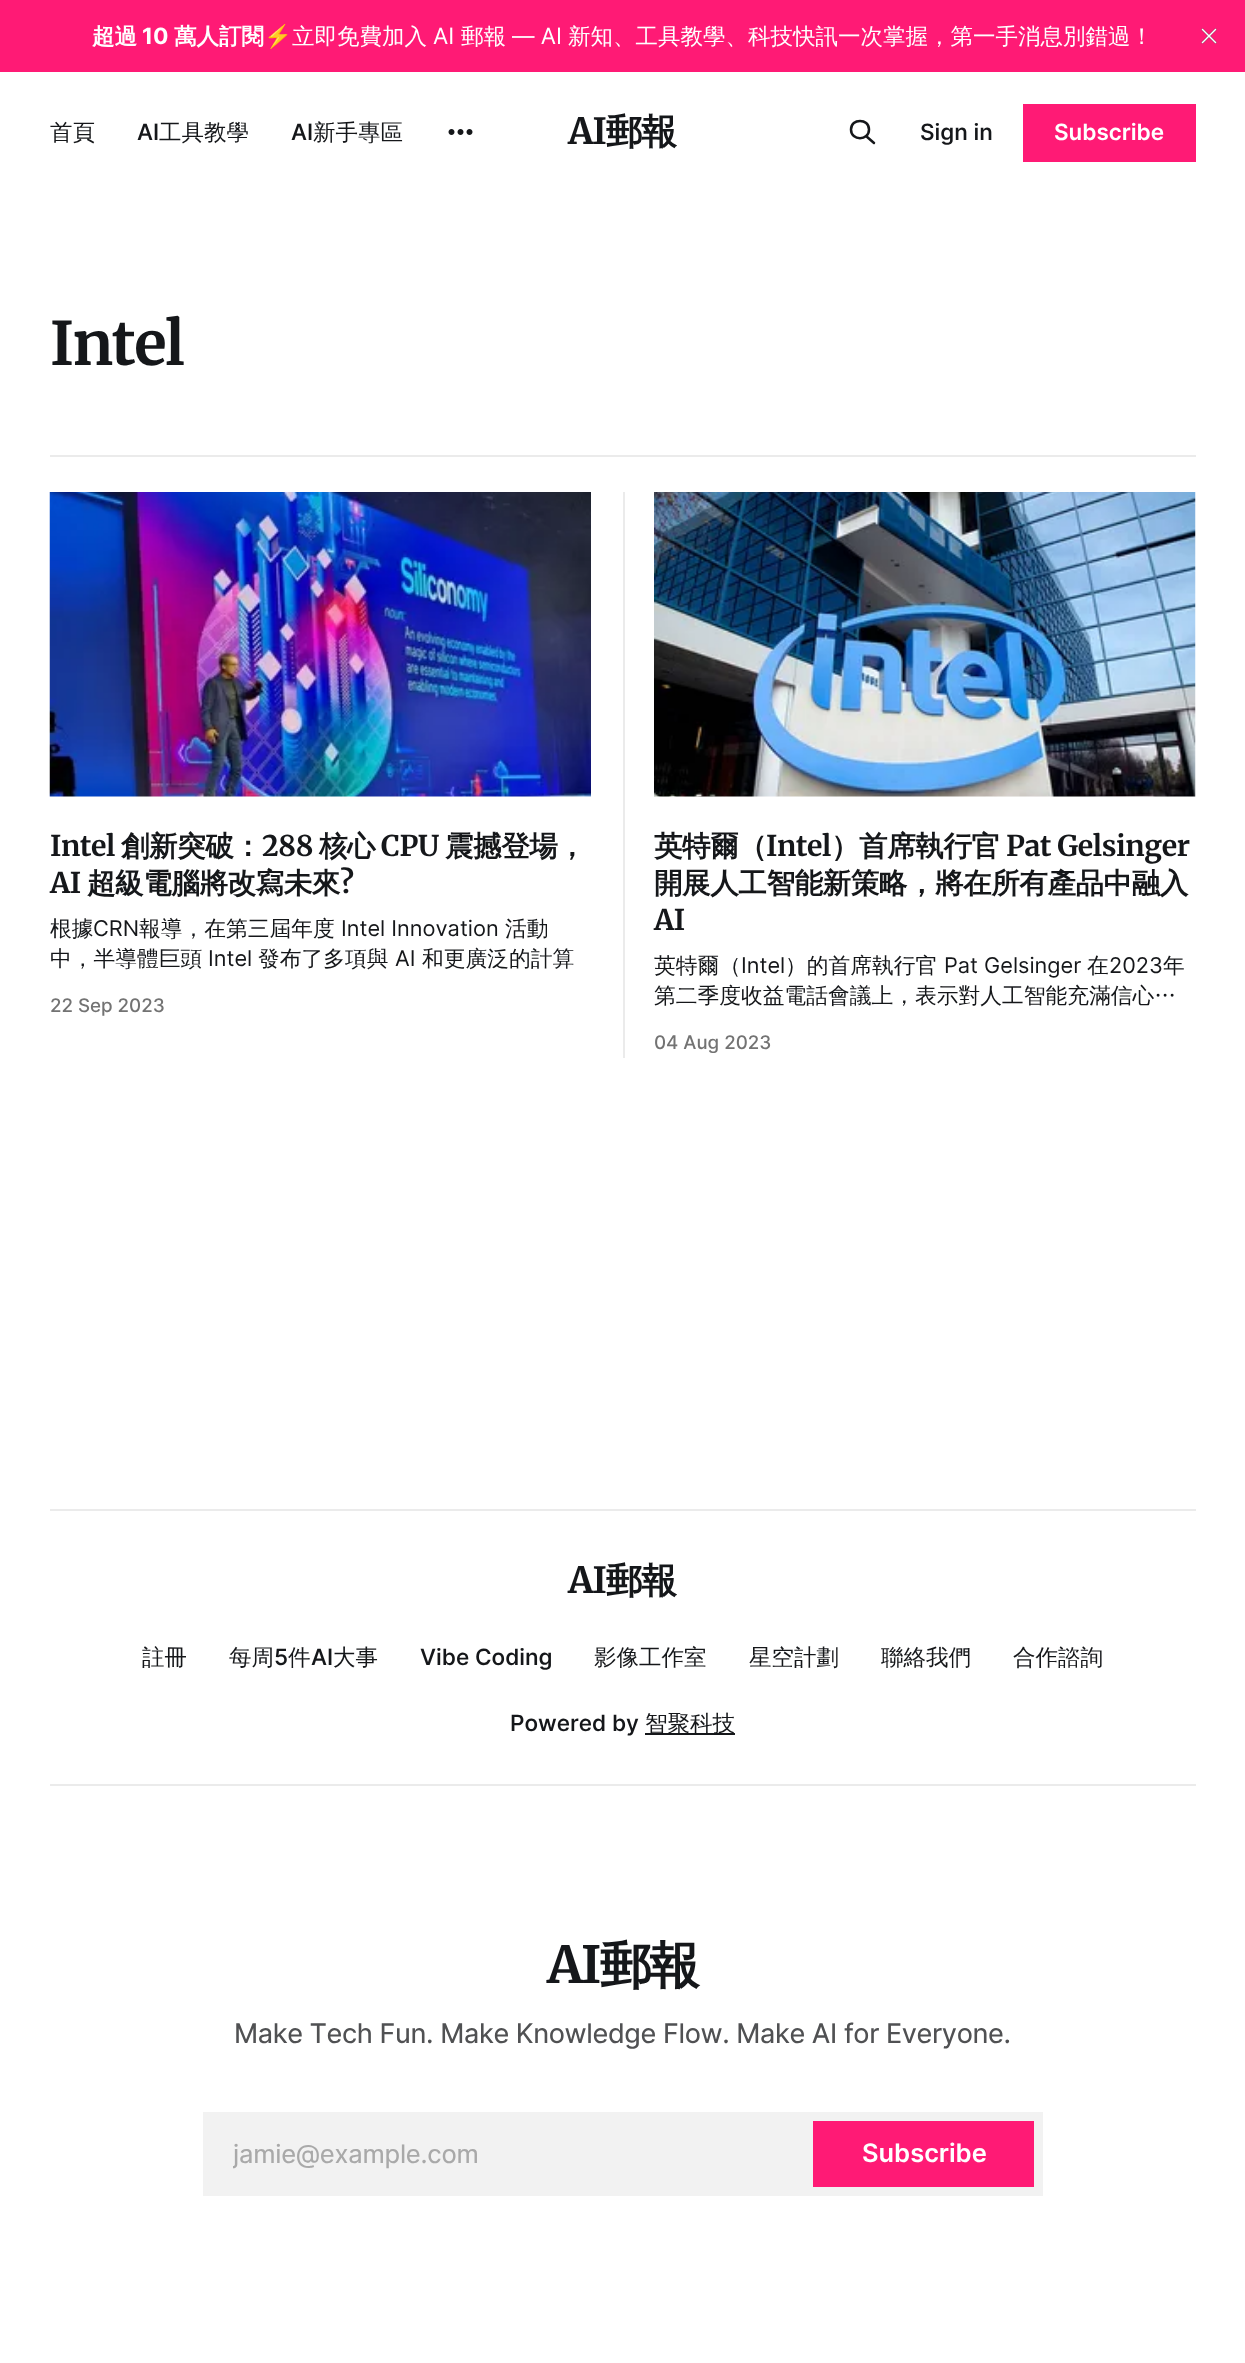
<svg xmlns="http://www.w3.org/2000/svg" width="1245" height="2363">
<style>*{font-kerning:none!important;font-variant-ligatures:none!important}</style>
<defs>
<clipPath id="clip1"><rect x="233" y="2139" width="780" height="30"/></clipPath>
</defs>
<rect width="100%" height="100%" fill="#fff"/>
<rect width="1245" height="72" fill="#ff1a75"/>
<text x="92" y="44" style="font-family:WenQuanYi Zen Hei;font-size:22.5px;font-weight:bold;fill:#fff">超過</text>
<text x="142" y="44" style="font-family:Inter;font-size:22.5px;font-weight:bold;fill:#fff">10</text>
<text x="174" y="44" style="font-family:WenQuanYi Zen Hei;font-size:22.5px;font-weight:bold;fill:#fff">萬人訂閱</text>
<text x="264" y="44" style="font-family:Noto Color Emoji;font-size:22.5px;fill:#fff">⚡</text>
<text x="292" y="44" style="font-family:WenQuanYi Zen Hei;font-size:22.5px;font-weight:500;fill:#fff">立即免費加入</text>
<text x="433" y="44" style="font-family:Inter;font-size:22.5px;fill:#fff">AI</text>
<text x="461" y="44" style="font-family:WenQuanYi Zen Hei;font-size:22.5px;font-weight:500;fill:#fff">郵報</text>
<text x="512" y="44" style="font-family:Inter;font-size:22.5px;fill:#fff">— AI</text>
<text x="568" y="44" style="font-family:WenQuanYi Zen Hei;font-size:22.5px;font-weight:500;fill:#fff">新知、工具教學、科技快訊一次掌握，第一手消息別錯過！</text>
<image x="1201" y="28" width="16" height="16" href="media/1.png"/>
<text x="50" y="140" style="font-family:WenQuanYi Zen Hei;font-size:22.5px;font-weight:500;fill:#15171a">首頁</text>
<text x="137" y="140" style="font-family:Inter;font-size:22.5px;font-weight:500;fill:#15171a">AI</text>
<text x="159" y="140" style="font-family:WenQuanYi Zen Hei;font-size:22.5px;font-weight:500;fill:#15171a">工具教學</text>
<text x="291" y="140" style="font-family:Inter;font-size:22.5px;font-weight:500;fill:#15171a">AI</text>
<text x="313" y="140" style="font-family:WenQuanYi Zen Hei;font-size:22.5px;font-weight:500;fill:#15171a">新手專區</text>
<image x="448" y="129" width="25" height="6" href="media/2.png"/>
<text x="568" y="144" style="font-family:Merriweather;font-size:36px;font-weight:300;letter-spacing:-1px;fill:#15171a">AI</text>
<text x="606" y="144" style="font-family:WenQuanYi Zen Hei;font-size:36px;font-weight:bold;letter-spacing:-1px;fill:#15171a">郵報</text>
<path d="M874 143l-8-7m3-6.5c0 11.5-18 11.5-18 0c0-11.5 18-11.5 18 0z" fill="none" stroke="#15171a" stroke-width="2.5" stroke-linecap="round" stroke-linejoin="round"/>
<text x="920" y="140" style="font-family:Inter;font-size:22.5px;font-weight:500;fill:#15171a">Sign in</text>
<rect x="1023" y="104" width="173" height="58" fill="#ff1a75"/>
<text x="1054" y="140" style="font-family:Inter;font-size:22.5px;font-weight:600;fill:#fff">Subscribe</text>
<rect x="50" y="455" width="1146" height="2" fill="#ebebeb"/>
<text x="50" y="365" style="font-family:Merriweather;font-size:60px;font-weight:300;letter-spacing:-1.5px;fill:#15171a">Intel</text>
<image x="49" y="492" width="542" height="305" href="media/3.png"/>
<text x="50" y="856" style="font-family:Merriweather;font-size:28.5px;font-weight:300;letter-spacing:-0.4px;fill:#15171a">Intel</text>
<text x="121" y="856" style="font-family:WenQuanYi Zen Hei;font-size:28.5px;font-weight:bold;letter-spacing:-0.4px;fill:#15171a">創新突破：</text>
<text x="262" y="856" style="font-family:Merriweather;font-size:28.5px;font-weight:300;letter-spacing:-0.4px;fill:#15171a">288</text>
<text x="319" y="856" style="font-family:WenQuanYi Zen Hei;font-size:28.5px;font-weight:bold;letter-spacing:-0.4px;fill:#15171a">核心</text>
<text x="381" y="856" style="font-family:Merriweather;font-size:28.5px;font-weight:300;letter-spacing:-0.4px;fill:#15171a">CPU</text>
<text x="445" y="856" style="font-family:WenQuanYi Zen Hei;font-size:28.5px;font-weight:bold;letter-spacing:-0.4px;fill:#15171a">震撼登場，</text>
<text x="50" y="893" style="font-family:Merriweather;font-size:28.5px;font-weight:300;letter-spacing:-0.4px;fill:#15171a">AI</text>
<text x="87" y="893" style="font-family:WenQuanYi Zen Hei;font-size:28.5px;font-weight:bold;letter-spacing:-0.4px;fill:#15171a">超級電腦將改寫未來</text>
<text x="340" y="893" style="font-family:Merriweather;font-size:28.5px;font-weight:300;letter-spacing:-0.4px;fill:#15171a">?</text>
<text x="50" y="936" style="font-family:WenQuanYi Zen Hei;font-size:21.75px;font-weight:500;fill:#15171a">根據</text>
<text x="93" y="936" style="font-family:Inter;font-size:21.75px;fill:#15171a">CRN</text>
<text x="139" y="936" style="font-family:WenQuanYi Zen Hei;font-size:21.75px;font-weight:500;fill:#15171a">報導，在第三屆年度</text>
<text x="341" y="936" style="font-family:Inter;font-size:21.75px;fill:#15171a">Intel Innovation</text>
<text x="505" y="936" style="font-family:WenQuanYi Zen Hei;font-size:21.75px;font-weight:500;fill:#15171a">活動</text>
<text x="50" y="966" style="font-family:WenQuanYi Zen Hei;font-size:21.75px;font-weight:500;fill:#15171a">中，半導體巨頭</text>
<text x="208" y="966" style="font-family:Inter;font-size:21.75px;fill:#15171a">Intel</text>
<text x="258" y="966" style="font-family:WenQuanYi Zen Hei;font-size:21.75px;font-weight:500;fill:#15171a">發布了多項與</text>
<text x="395" y="966" style="font-family:Inter;font-size:21.75px;fill:#15171a">AI</text>
<text x="422" y="966" style="font-family:WenQuanYi Zen Hei;font-size:21.75px;font-weight:500;fill:#15171a">和更廣泛的計算</text>
<text x="50" y="1012" style="font-family:'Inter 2';font-size:18.75px;font-weight:500;fill:#737373">22 Sep 2023</text>
<rect x="623" y="492" width="2" height="566" fill="#ebebeb"/>
<image x="654" y="492" width="542" height="305" href="media/4.png"/>
<text x="654" y="856" style="font-family:WenQuanYi Zen Hei;font-size:28.5px;font-weight:bold;letter-spacing:-0.4px;fill:#15171a">英特爾（</text>
<text x="766" y="856" style="font-family:Merriweather;font-size:28.5px;font-weight:300;letter-spacing:-0.4px;fill:#15171a">Intel</text>
<text x="831" y="856" style="font-family:WenQuanYi Zen Hei;font-size:28.5px;font-weight:bold;letter-spacing:-0.4px;fill:#15171a">）首席執行官</text>
<text x="1006" y="856" style="font-family:Merriweather;font-size:28.5px;font-weight:300;letter-spacing:-0.4px;fill:#15171a">Pat Gelsinger</text>
<text x="654" y="893" style="font-family:WenQuanYi Zen Hei;font-size:28.5px;font-weight:bold;letter-spacing:-0.4px;fill:#15171a">開展人工智能新策略，將在所有產品中融入</text>
<text x="654" y="930" style="font-family:Merriweather;font-size:28.5px;font-weight:300;letter-spacing:-0.4px;fill:#15171a">AI</text>
<text x="654" y="973" style="font-family:WenQuanYi Zen Hei;font-size:21.75px;font-weight:500;fill:#15171a">英特爾（</text>
<text x="741" y="973" style="font-family:Inter;font-size:21.75px;fill:#15171a">Intel</text>
<text x="785" y="973" style="font-family:WenQuanYi Zen Hei;font-size:21.75px;font-weight:500;fill:#15171a">）的首席執行官</text>
<text x="944" y="973" style="font-family:Inter;font-size:21.75px;fill:#15171a">Pat Gelsinger</text>
<text x="1087" y="973" style="font-family:WenQuanYi Zen Hei;font-size:21.75px;font-weight:500;fill:#15171a">在</text>
<text x="1109" y="973" style="font-family:Inter;font-size:21.75px;fill:#15171a">2023</text>
<text x="1163" y="973" style="font-family:WenQuanYi Zen Hei;font-size:21.75px;font-weight:500;fill:#15171a">年</text>
<text x="654" y="1003" style="font-family:WenQuanYi Zen Hei;font-size:21.75px;font-weight:500;fill:#15171a">第二季度收益電話會議上，表示對人工智能充滿信心…</text>
<text x="654" y="1049" style="font-family:'Inter 2';font-size:18.75px;font-weight:500;fill:#737373">04 Aug 2023</text>
<rect x="50" y="1509" width="1146" height="2" fill="#ebebeb"/>
<rect x="50" y="1784" width="1146" height="2" fill="#ebebeb"/>
<text x="568" y="1593" style="font-family:Merriweather;font-size:36px;font-weight:300;letter-spacing:-1px;fill:#15171a">AI</text>
<text x="606" y="1593" style="font-family:WenQuanYi Zen Hei;font-size:36px;font-weight:bold;letter-spacing:-1px;fill:#15171a">郵報</text>
<text x="142" y="1665" style="font-family:WenQuanYi Zen Hei;font-size:22.5px;font-weight:500;fill:#15171a">註冊</text>
<text x="229" y="1665" style="font-family:WenQuanYi Zen Hei;font-size:22.5px;font-weight:500;fill:#15171a">每周</text>
<text x="274" y="1665" style="font-family:Inter;font-size:22.5px;font-weight:500;fill:#15171a">5</text>
<text x="288" y="1665" style="font-family:WenQuanYi Zen Hei;font-size:22.5px;font-weight:500;fill:#15171a">件</text>
<text x="311" y="1665" style="font-family:Inter;font-size:22.5px;font-weight:500;fill:#15171a">AI</text>
<text x="333" y="1665" style="font-family:WenQuanYi Zen Hei;font-size:22.5px;font-weight:500;fill:#15171a">大事</text>
<text x="420" y="1665" style="font-family:Inter;font-size:22.5px;font-weight:500;fill:#15171a">Vibe Coding</text>
<text x="594" y="1665" style="font-family:WenQuanYi Zen Hei;font-size:22.5px;font-weight:500;fill:#15171a">影像工作室</text>
<text x="749" y="1665" style="font-family:WenQuanYi Zen Hei;font-size:22.5px;font-weight:500;fill:#15171a">星空計劃</text>
<text x="881" y="1665" style="font-family:WenQuanYi Zen Hei;font-size:22.5px;font-weight:500;fill:#15171a">聯絡我們</text>
<text x="1013" y="1665" style="font-family:WenQuanYi Zen Hei;font-size:22.5px;font-weight:500;fill:#15171a">合作諮詢</text>
<text x="510" y="1731" style="font-family:Inter;font-size:22.5px;font-weight:500;fill:#15171a">Powered by</text>
<rect x="645" y="1733" width="90" height="2" fill="#15171a"/>
<text x="645" y="1731" style="font-family:WenQuanYi Zen Hei;font-size:22.5px;font-weight:500;fill:#15171a">智聚科技</text>
<text x="547" y="1983" style="font-family:Merriweather;font-size:51px;font-weight:300;letter-spacing:-2px;fill:#15171a">AI</text>
<text x="600" y="1983" style="font-family:WenQuanYi Zen Hei;font-size:51px;font-weight:bold;letter-spacing:-2px;fill:#15171a">郵報</text>
<text x="234" y="2043" style="font-family:'Inter 2';font-size:27px;letter-spacing:-0.38px;fill:#505153">Make Tech Fun. Make Knowledge</text>
<text x="663" y="2043" style="font-family:'Inter 2';font-size:27px;letter-spacing:-0.38px;fill:#505153">Flow. Make AI for Everyone.</text>
<rect x="203" y="2112" width="840" height="84" fill="#f2f2f2"/>
<g clip-path="url(#clip1)">
<text x="233" y="2163" style="font-family:'Inter 2';font-size:25.5px;letter-spacing:-0.25px;fill:#a9a9a9">jamie@example.com</text>
</g>
<rect x="813" y="2121" width="221" height="66" fill="#ff1a75"/>
<text x="862" y="2162" style="font-family:Inter;font-size:25.5px;font-weight:600;fill:#fff">Subscribe</text>
</svg>
